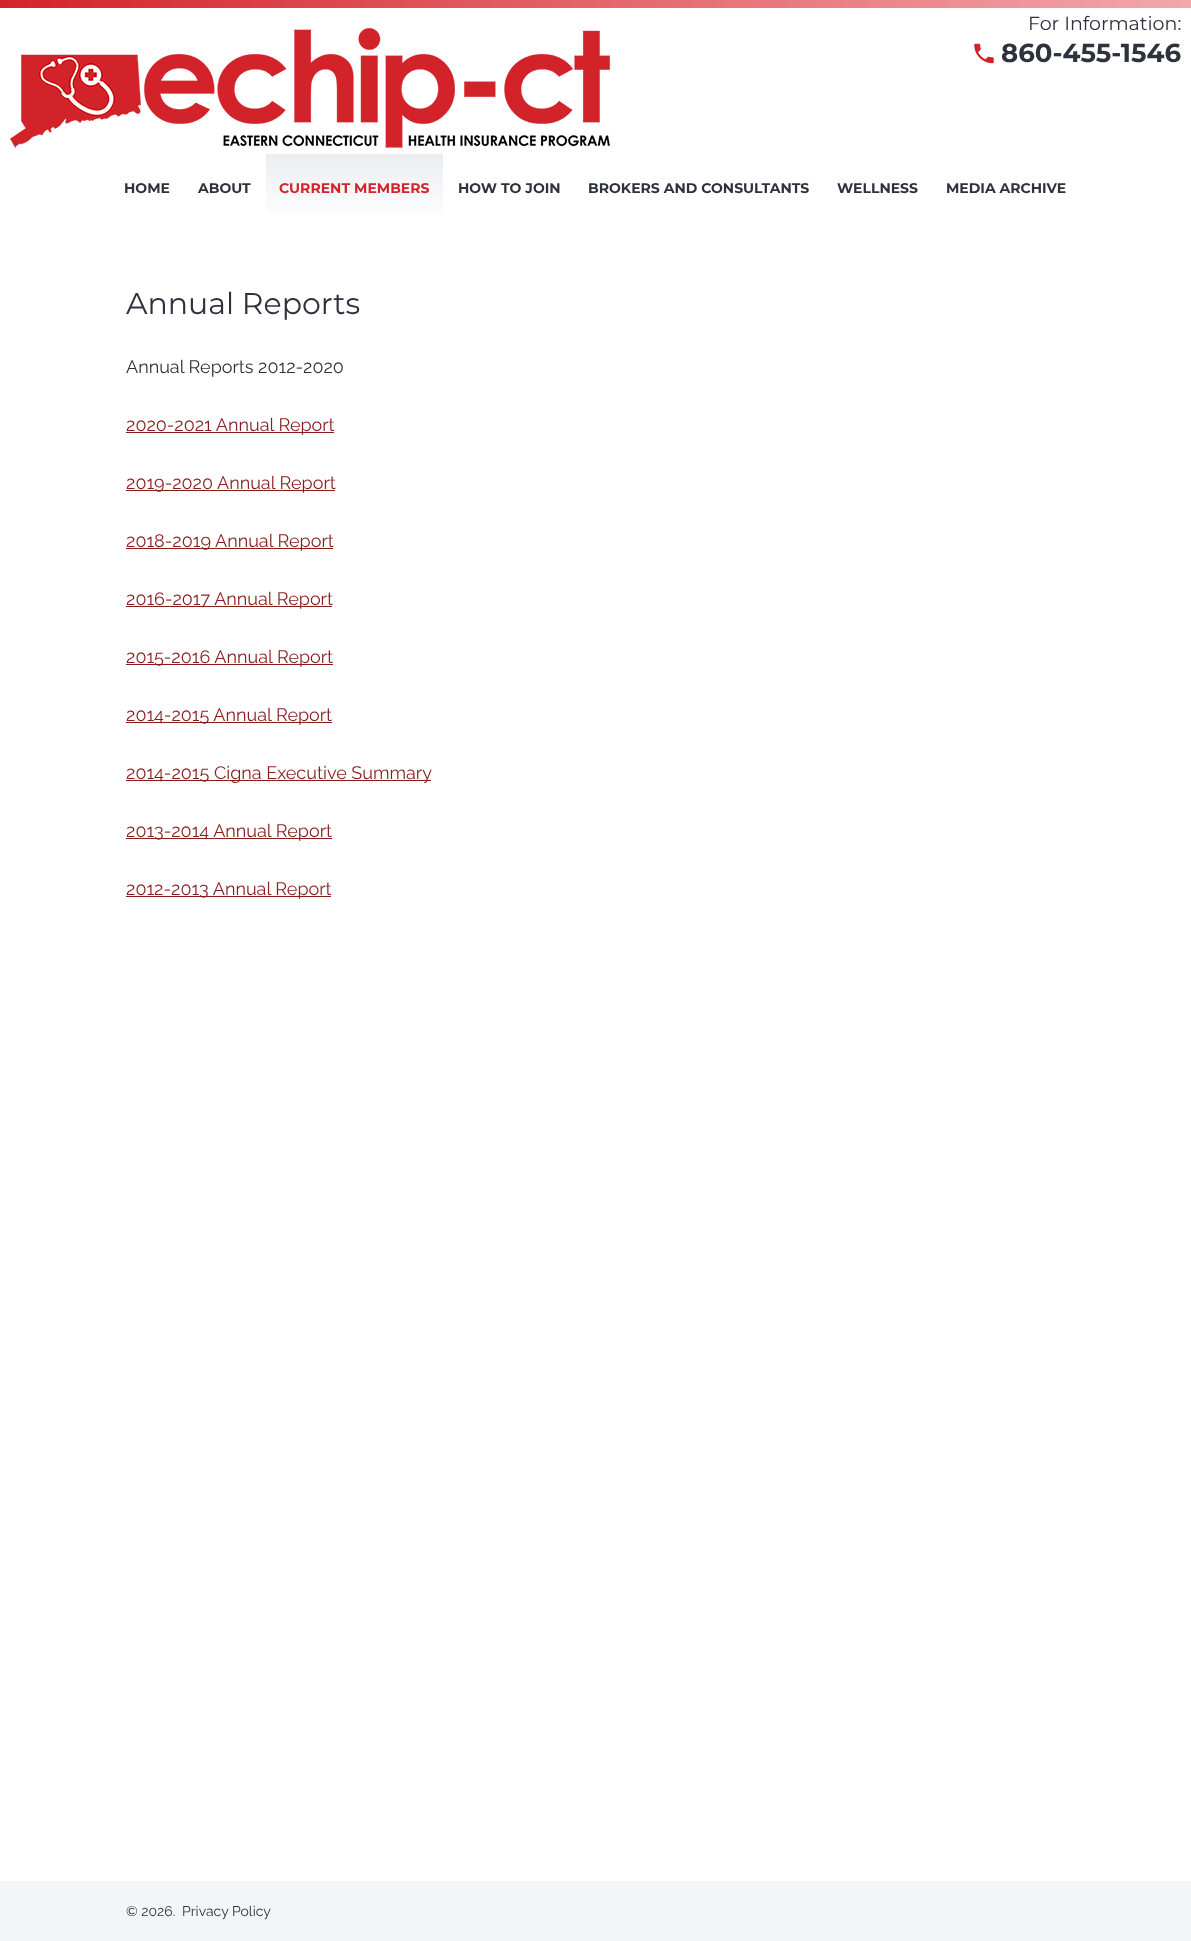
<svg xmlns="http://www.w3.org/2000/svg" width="1191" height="1941">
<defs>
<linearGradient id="g1" gradientUnits="userSpaceOnUse" x1="0" y1="4" x2="1191" y2="4"><stop offset="0" stop-color="#d3232a"/><stop offset="1" stop-color="#f3a8ab"/></linearGradient>
<linearGradient id="g2" gradientUnits="userSpaceOnUse" x1="355" y1="154" x2="355" y2="223"><stop offset="0" stop-color="#ebedf1"/><stop offset="1" stop-color="#fff"/></linearGradient>
</defs>
<rect width="100%" height="100%" fill="#fff"/>
<rect width="1191" height="8" fill="url(#g1)"/>
<image x="10" y="28" width="600" height="120" href="media/1.png"/>
<text x="1028" y="30" style="font-family:Montserrat;font-size:19px;fill:#2e323d">For Information:</text>
<image x="974" y="43" width="20" height="21" href="media/2.png"/>
<text x="1001" y="62" style="font-family:Montserrat;font-size:26px;font-weight:bold;fill:#2e323d">860-455-1546</text>
<text x="124" y="193" style="font-family:Montserrat;font-size:14px;font-weight:bold;fill:#2e323d">HOME</text>
<text x="198" y="193" style="font-family:Montserrat;font-size:14px;font-weight:bold;fill:#2e323d">ABOUT</text>
<rect x="266" y="154" width="177" height="60" fill="url(#g2)"/>
<text x="279" y="193" style="font-family:Montserrat;font-size:14px;font-weight:bold;fill:#d3232b">CURRENT MEMBERS</text>
<text x="458" y="193" style="font-family:Montserrat;font-size:14px;font-weight:bold;fill:#2e323d">HOW TO JOIN</text>
<text x="588" y="193" style="font-family:Montserrat;font-size:14px;font-weight:bold;fill:#2e323d">BROKERS AND CONSULTANTS</text>
<text x="837" y="193" style="font-family:Montserrat;font-size:14px;font-weight:bold;fill:#2e323d">WELLNESS</text>
<text x="946" y="193" style="font-family:Montserrat;font-size:14px;font-weight:bold;fill:#2e323d">MEDIA ARCHIVE</text>
<text x="126" y="314" style="font-family:Montserrat;font-size:30px;fill:#2e323d">Annual Reports</text>
<text x="126" y="373" style="font-family:Raleway;font-size:18px;fill:#2e323d">Annual Reports 2012-2020</text>
<rect x="126" y="432" width="208" height="1" fill="#881d1d"/>
<text x="126" y="431" style="font-family:Raleway;font-size:18px;fill:#881d1d">2020-2021 Annual Report</text>
<rect x="126" y="490" width="209" height="1" fill="#881d1d"/>
<text x="126" y="489" style="font-family:Raleway;font-size:18px;fill:#881d1d">2019-2020 Annual Report</text>
<rect x="126" y="548" width="207" height="1" fill="#881d1d"/>
<text x="126" y="547" style="font-family:Raleway;font-size:18px;fill:#881d1d">2018-2019 Annual Report</text>
<rect x="126" y="606" width="206" height="1" fill="#881d1d"/>
<text x="126" y="605" style="font-family:Raleway;font-size:18px;fill:#881d1d">2016-2017 Annual Report</text>
<rect x="126" y="664" width="207" height="1" fill="#881d1d"/>
<text x="126" y="663" style="font-family:Raleway;font-size:18px;fill:#881d1d">2015-2016 Annual Report</text>
<rect x="126" y="722" width="206" height="1" fill="#881d1d"/>
<text x="126" y="721" style="font-family:Raleway;font-size:18px;fill:#881d1d">2014-2015 Annual Report</text>
<rect x="126" y="780" width="305" height="1" fill="#881d1d"/>
<text x="126" y="779" style="font-family:Raleway;font-size:18px;fill:#881d1d">2014-2015 Cigna Executive Summary</text>
<rect x="126" y="838" width="206" height="1" fill="#881d1d"/>
<text x="126" y="837" style="font-family:Raleway;font-size:18px;fill:#881d1d">2013-2014 Annual Report</text>
<rect x="126" y="896" width="205" height="1" fill="#881d1d"/>
<text x="126" y="895" style="font-family:Raleway;font-size:18px;fill:#881d1d">2012-2013 Annual Report</text>
<rect y="1881" width="1191" height="60" fill="#f4f5f7"/>
<text x="126" y="1916" style="font-family:Raleway;font-size:14px;fill:#2e323d">© 2026.</text>
<text x="182" y="1916" style="font-family:Raleway;font-size:14px;fill:#2e323d">Privacy Policy</text>
</svg>
